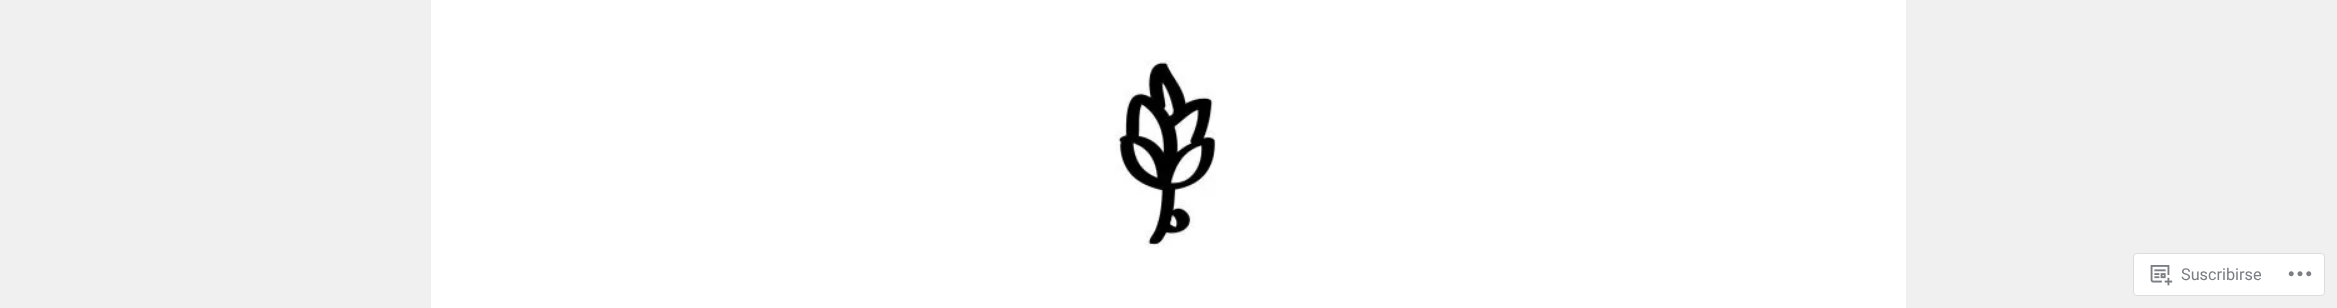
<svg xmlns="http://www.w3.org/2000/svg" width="2337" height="308">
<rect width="100%" height="100%" fill="#f0f0f0"/>
<rect x="431" width="1475" height="308" fill="#fff"/>
<image x="1115" y="60" width="101" height="188" href="media/1.png"/>
<rect x="2133.5" y="253.5" width="191" height="42" rx="3.5" fill="#fff" stroke="#dcdcde"/>
<image x="2150" y="265" width="23" height="21" href="media/2.png"/>
<text x="2181" y="280" style="font-family:Roboto;font-size:16.25px;fill:#7a7e84">Suscribirse</text>
<image x="2288" y="271" width="24" height="6" href="media/3.png"/>
</svg>
